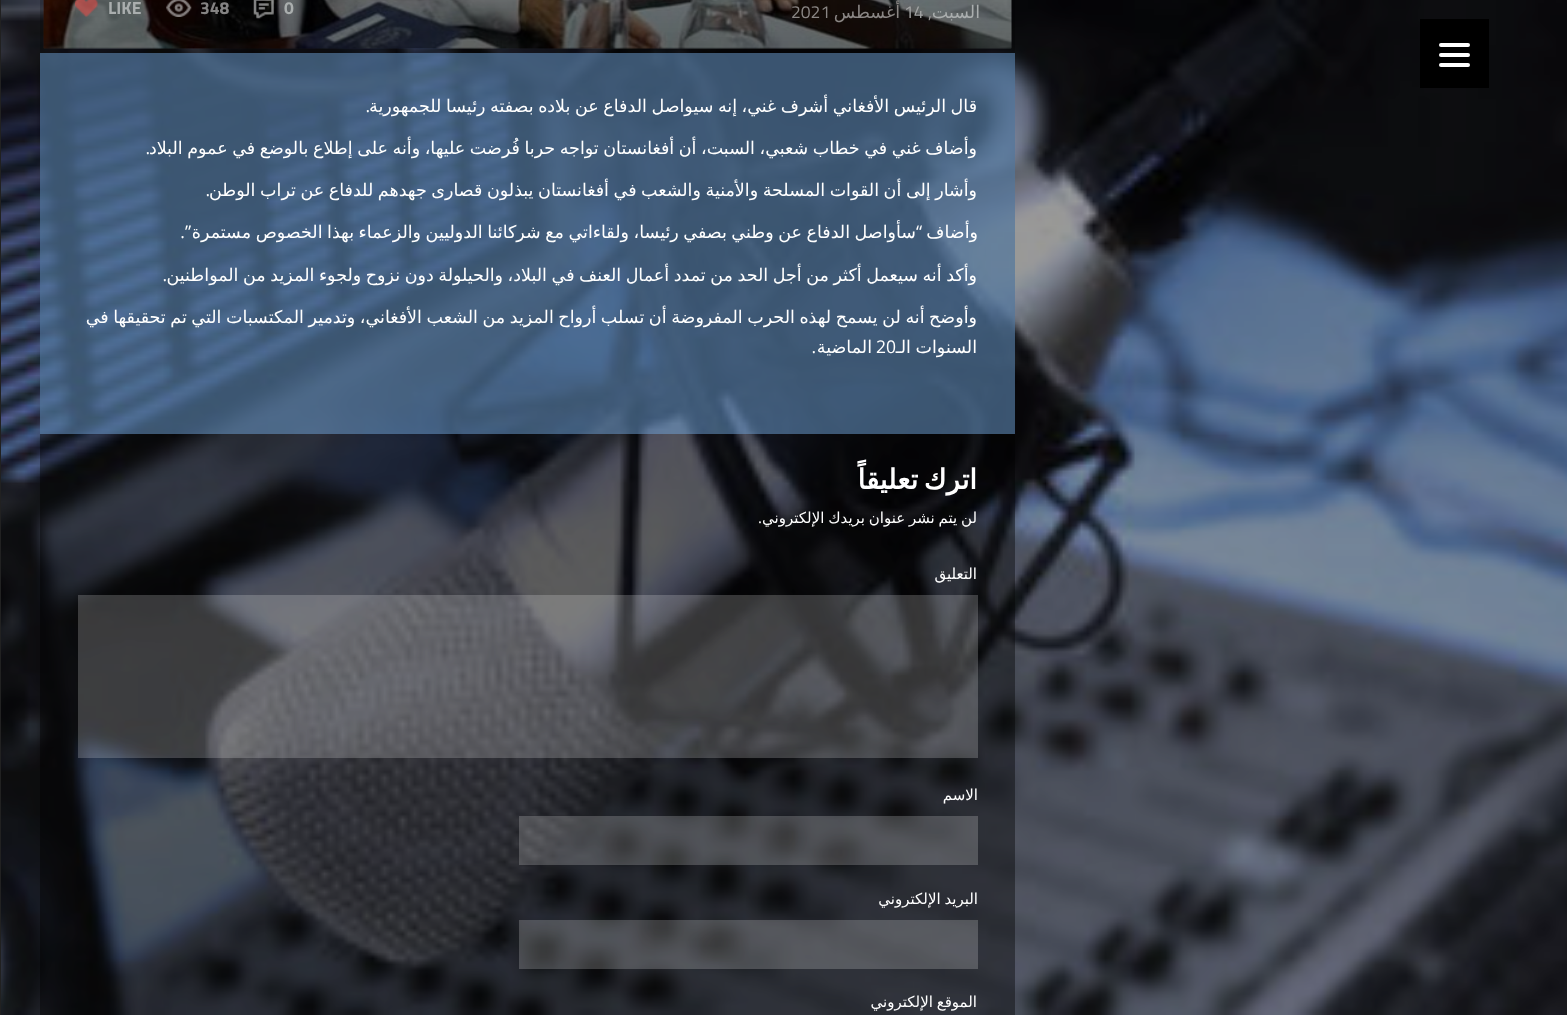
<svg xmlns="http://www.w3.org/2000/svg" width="1567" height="1015">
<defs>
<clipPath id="clip1"><rect x="78" y="435" width="900" height="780"/></clipPath>
</defs>
<rect width="100%" height="100%" fill="#fff"/>
<image x="1" y="0" width="1566" height="1015" href="media/1.png"/>
<rect width="1" height="1015" fill="#212121"/>
<rect x="1420" y="19" width="69" height="69" fill="#000"/>
<rect x="1439" y="53" width="31" height="4" rx="2" fill="#fff"/>
<rect x="1439" y="43" width="31" height="4" rx="2" fill="#fff"/>
<rect x="1439" y="63" width="31" height="4" rx="2" fill="#fff"/>
<rect x="40" width="975" height="53" fill="#00000033"/>
<image x="43" y="0" width="969" height="49" href="media/2.png"/>
<image x="43" y="0" width="969" height="49" href="media/3.png"/>
<text x="980" y="18" style="font-family:DejaVu Sans;font-size:17.5px;direction:rtl;fill:#aaaeae">السبت</text>
<text x="904" y="18" style="font-family:Titillium Web;font-size:17.5px;fill:#a2a3a3">14</text>
<text x="900" y="18" style="font-family:DejaVu Sans;font-size:17.5px;direction:rtl;fill:#8a8684">أغسطس</text>
<text x="791" y="18" style="font-family:Titillium Web;font-size:17.5px;fill:#8a8684">2021</text>
<text x="932" y="18" style="font-family:Titillium Web;font-size:17.5px;direction:rtl;fill:#989797">,</text>
<image x="253" y="0" width="21" height="19" href="media/4.png"/>
<text x="284" y="14" style="font-family:Titillium Web;font-size:17.5px;font-weight:bold;fill:#aaaeae">0</text>
<image x="166" y="0" width="26" height="17" href="media/5.png"/>
<text x="200" y="14" style="font-family:Titillium Web;font-size:17.5px;font-weight:bold;fill:#848383">348</text>
<image x="75" y="0" width="23" height="17" href="media/6.png"/>
<text x="108" y="14" style="font-family:Titillium Web;font-size:17.5px;font-weight:bold;fill:#aaaeae">LIKE</text>
<rect x="40" y="53" width="975" height="381" fill="#51769cb3"/>
<text x="977" y="112" word-spacing="-1" style="font-family:DejaVu Sans;font-size:17.5px;direction:rtl;fill:#fff">قال الرئيس الأفغاني أشرف غني، إنه سيواصل الدفاع عن بلاده بصفته رئيسا للجمهورية</text>
<text x="370" y="112" style="font-family:Open Sans;font-size:17.5px;direction:rtl;fill:#fff">.</text>
<text x="977" y="154" word-spacing="-1" style="font-family:DejaVu Sans;font-size:17.5px;direction:rtl;fill:#fff">وأضاف غني في خطاب شعبي، السبت، أن أفغانستان تواجه حربا فُرضت عليها، وأنه على إطلاع بالوضع في عموم البلاد</text>
<text x="150" y="154" style="font-family:Open Sans;font-size:17.5px;direction:rtl;fill:#fff">.</text>
<text x="977" y="196" word-spacing="-1" style="font-family:DejaVu Sans;font-size:17.5px;direction:rtl;fill:#fff">وأشار إلى أن القوات المسلحة والأمنية والشعب في أفغانستان يبذلون قصارى جهدهم للدفاع عن تراب الوطن</text>
<text x="210" y="196" style="font-family:Open Sans;font-size:17.5px;direction:rtl;fill:#fff">.</text>
<text x="978" y="238" style="font-family:DejaVu Sans;font-size:17.5px;direction:rtl;fill:#fff">وأضاف</text>
<text x="916" y="238" word-spacing="-1" style="font-family:DejaVu Sans;font-size:17.5px;direction:rtl;fill:#fff">سأواصل الدفاع عن وطني بصفي رئيسا، ولقاءاتي مع شركائنا الدوليين والزعماء بهذا الخصوص مستمرة</text>
<text x="191" y="238" style="font-family:Open Sans;font-size:17.5px;direction:rtl;fill:#fff">”.</text>
<text x="922" y="238" style="font-family:Open Sans;font-size:17.5px;direction:rtl;fill:#fff">“</text>
<text x="977" y="281" word-spacing="-1" style="font-family:DejaVu Sans;font-size:17.5px;direction:rtl;fill:#fff">وأكد أنه سيعمل أكثر من أجل الحد من تمدد أعمال العنف في البلاد، والحيلولة دون نزوح ولجوء المزيد من المواطنين</text>
<text x="167" y="281" style="font-family:Open Sans;font-size:17.5px;direction:rtl;fill:#fff">.</text>
<text x="977" y="323" word-spacing="-1" style="font-family:DejaVu Sans;font-size:17.5px;direction:rtl;fill:#fff">وأوضح أنه لن يسمح لهذه الحرب المفروضة أن تسلب أرواح المزيد من الشعب الأفغاني، وتدمير المكتسبات التي تم تحقيقها في</text>
<text x="876" y="353" style="font-family:Open Sans;font-size:17.5px;fill:#fff">20</text>
<text x="977" y="353" word-spacing="-1" style="font-family:DejaVu Sans;font-size:17.5px;direction:rtl;fill:#fff">السنوات الـ</text>
<text x="872" y="353" style="font-family:DejaVu Sans;font-size:17.5px;direction:rtl;fill:#fff">الماضية</text>
<text x="816" y="353" style="font-family:Open Sans;font-size:17.5px;direction:rtl;fill:#fff">.</text>
<rect x="40" y="434" width="975" height="581" fill="#00000066"/>
<text x="977" y="489" word-spacing="-3" style="font-family:DejaVu Sans;font-size:27.5px;font-weight:bold;direction:rtl;fill:#fff">اترك تعليقاً</text>
<g clip-path="url(#clip1)">
<text x="977" y="523" word-spacing="-1" style="font-family:DejaVu Sans;font-size:15px;direction:rtl;fill:#fff">لن يتم نشر عنوان بريدك الإلكتروني</text>
</g>
<text x="762" y="523" style="font-family:Open Sans;font-size:15px;direction:rtl;fill:#fff">.</text>
<text x="977" y="579" style="font-family:DejaVu Sans;font-size:15px;direction:rtl;fill:#fff">التعليق</text>
<rect x="78" y="595" width="900" height="163" fill="#ffffff33"/>
<text x="978" y="800" style="font-family:DejaVu Sans;font-size:15px;direction:rtl;fill:#fff">الاسم</text>
<rect x="519" y="816" width="459" height="49" fill="#ffffff33"/>
<text x="978" y="904" word-spacing="-1" style="font-family:DejaVu Sans;font-size:15px;direction:rtl;fill:#fff">البريد الإلكتروني</text>
<rect x="519" y="920" width="459" height="49" fill="#ffffff33"/>
<text x="977" y="1007" word-spacing="-1" style="font-family:DejaVu Sans;font-size:15px;direction:rtl;fill:#fff">الموقع الإلكتروني</text>
</svg>
